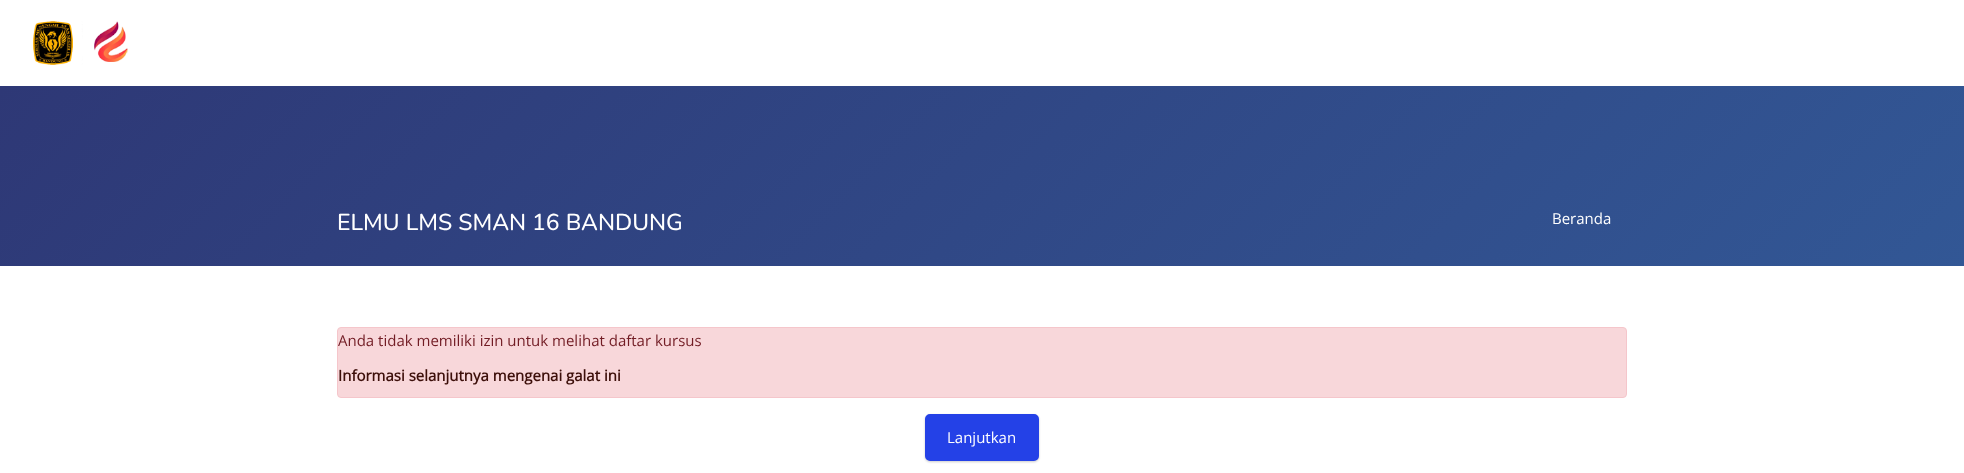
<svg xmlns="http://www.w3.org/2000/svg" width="1964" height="473">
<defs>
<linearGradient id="g1" gradientUnits="userSpaceOnUse" x1="1518" y1="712" x2="446" y2="-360"><stop offset="0" stop-color="#325795"/><stop offset="1" stop-color="#2e3876"/></linearGradient>
</defs>
<rect width="100%" height="100%" fill="#fff"/>
<image x="33" y="21" width="95" height="44" href="media/1.png"/>
<rect y="86" width="1964" height="180" fill="url(#g1)"/>
<text x="337" y="230" style="font-family:Nunito;font-size:23px;font-weight:500;fill:#fff">ELMU LMS SMAN 16 BANDUNG</text>
<text x="1552" y="224" style="font-family:Open Sans;font-size:15px;fill:#fff">Beranda</text>
<rect x="337.5" y="327.5" width="1289" height="70" rx="3.5" fill="#f8d7da" stroke="#f5c6cb"/>
<text x="338" y="346" style="font-family:Open Sans;font-size:15px;fill:#721c24">Anda tidak memiliki izin untuk melihat daftar kursus</text>
<text x="338" y="381" style="font-family:Open Sans;font-size:15px;font-weight:bold;fill:#3d0f0a">Informasi selanjutnya mengenai galat ini</text>
<rect x="925" y="415" width="114" height="47" rx="5" fill="#00000033" filter="blur(1px)"/>
<rect x="926" y="415" width="112" height="45" rx="4" fill="#2441e7" stroke="#2441e7" stroke-width="2"/>
<text x="947" y="443" style="font-family:Open Sans;font-size:15px;fill:#fff">Lanjutkan</text>
</svg>
